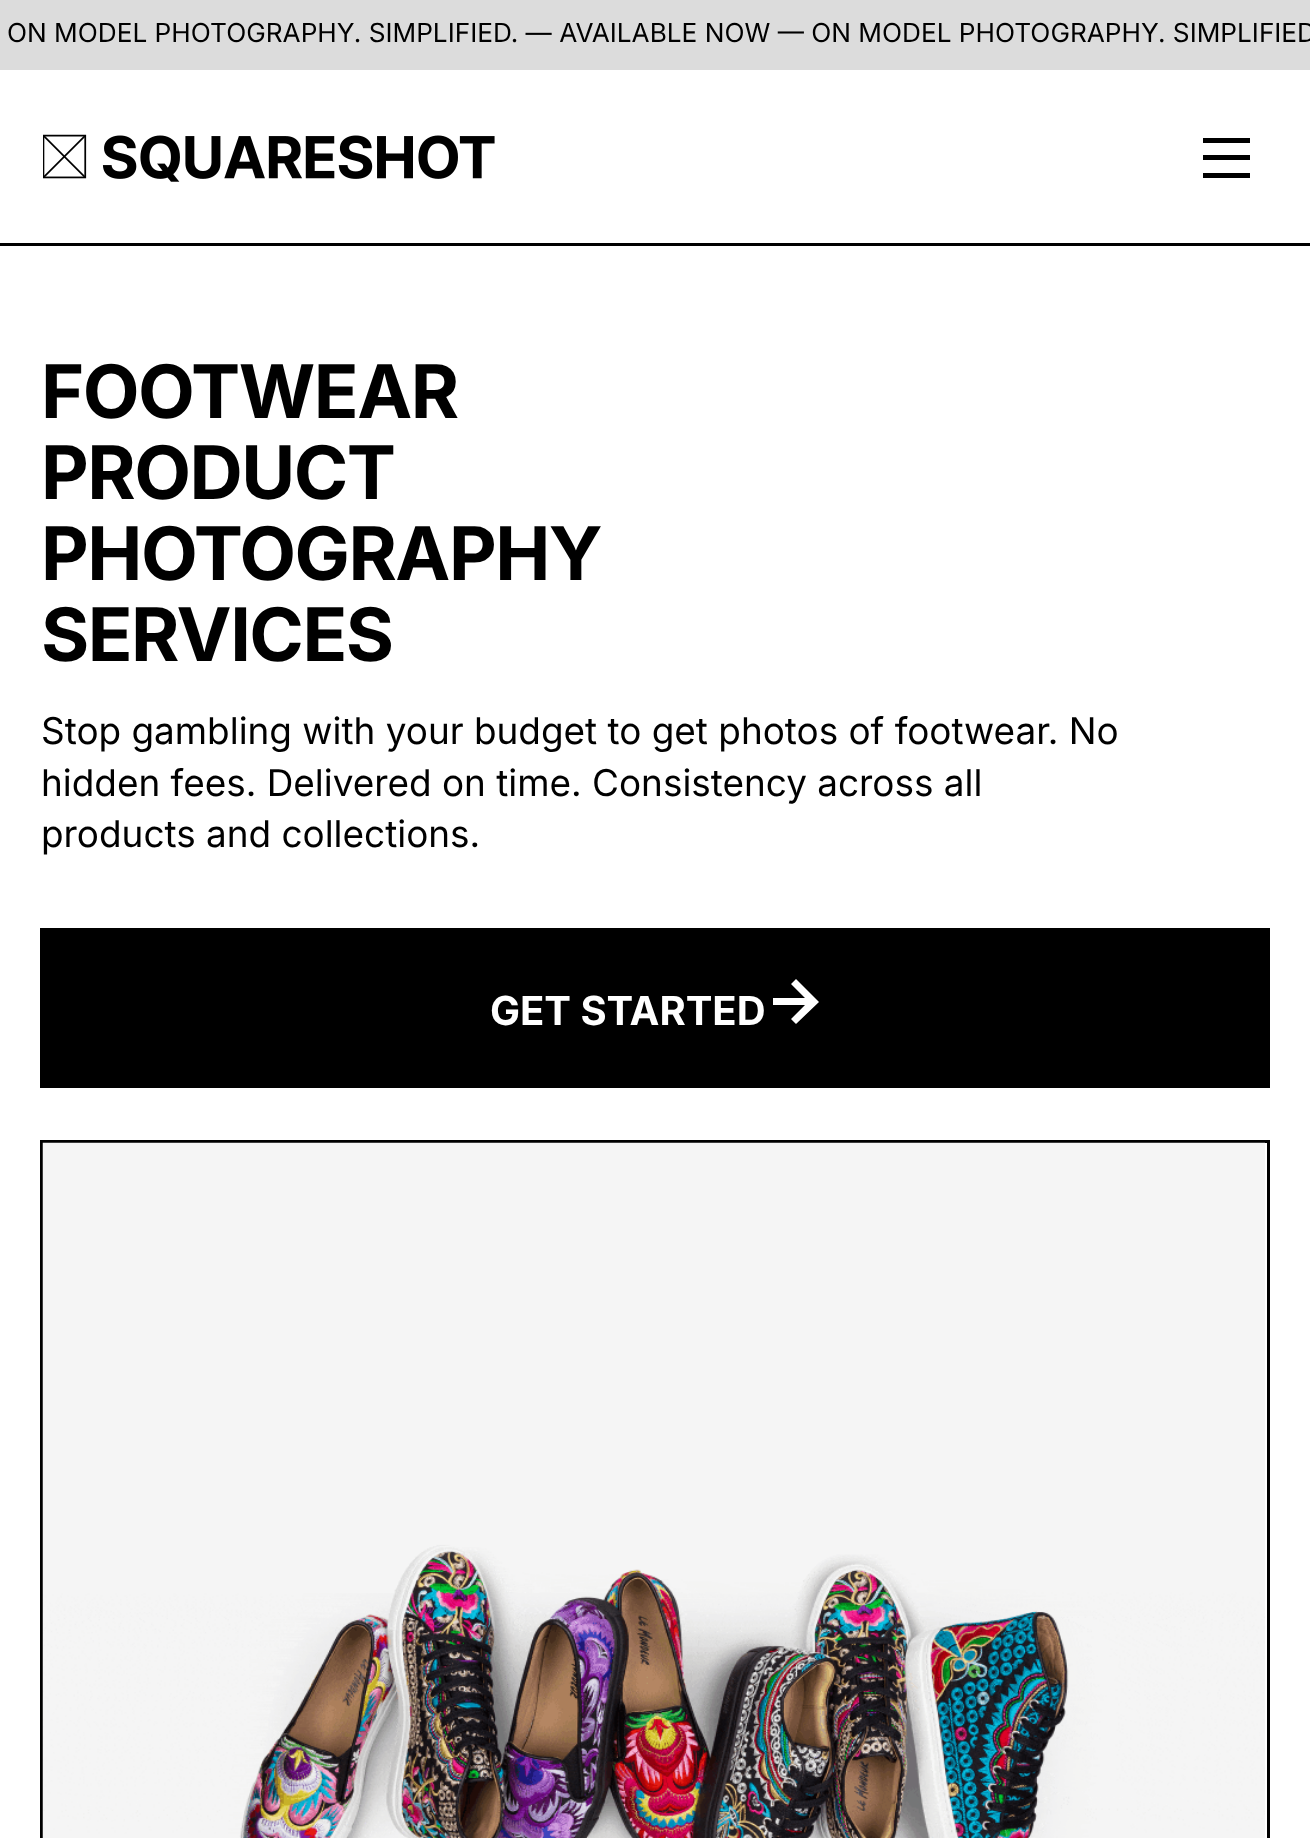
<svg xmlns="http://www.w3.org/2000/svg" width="1310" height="1838">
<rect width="100%" height="100%" fill="#fff"/>
<rect width="1310" height="70" fill="#dcdcdc"/>
<text x="7" y="42" style="font-family:Inter;font-size:26.2px;fill:#000">ON MODEL PHOTOGRAPHY. SIMPLIFIED. — AVAILABLE NOW — ON MODEL PHOTOGRAPHY. SIMPLIFIED</text>
<rect y="243" width="1310" height="3" fill="#000"/>
<image x="43" y="134" width="452" height="48" href="media/1.png"/>
<rect x="1203" y="138" width="47" height="5" fill="#000"/>
<rect x="1203" y="155" width="47" height="5" fill="#000"/>
<rect x="1203" y="173" width="47" height="5" fill="#000"/>
<text x="41" y="418" style="font-family:Inter;font-size:73.75px;font-weight:bold;letter-spacing:-1.5px;fill:#000">FOOTWEAR</text>
<text x="41" y="499" style="font-family:Inter;font-size:73.75px;font-weight:bold;letter-spacing:-1.5px;fill:#000">PRODUCT</text>
<text x="41" y="580" style="font-family:Inter;font-size:73.75px;font-weight:bold;letter-spacing:-1.5px;fill:#000">PHOTOGRAPHY</text>
<text x="41" y="661" style="font-family:Inter;font-size:73.75px;font-weight:bold;letter-spacing:-1.5px;fill:#000">SERVICES</text>
<text x="41" y="744" style="font-family:Inter;font-size:36.9px;fill:#000">Stop gambling with your budget to get photos of footwear. No</text>
<text x="41" y="796" style="font-family:Inter;font-size:36.9px;fill:#000">hidden fees. Delivered on time. Consistency across all</text>
<text x="41" y="847" style="font-family:Inter;font-size:36.9px;fill:#000">products and collections.</text>
<rect x="40" y="928" width="1230" height="160" fill="#000"/>
<text x="490" y="1025" style="font-family:Inter;font-size:40px;font-weight:bold;fill:#fff">GET STARTED</text>
<path d="M796 1024l-5-5l14-14h-32v-7h32l-14-14l5-5l23 23z" fill="#fff"/>
<rect x="41.5" y="1141.5" width="1227" height="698" fill="none" stroke="#000" stroke-width="3"/>
<image x="42" y="1142" width="1223" height="696" href="media/2.png"/>
</svg>
